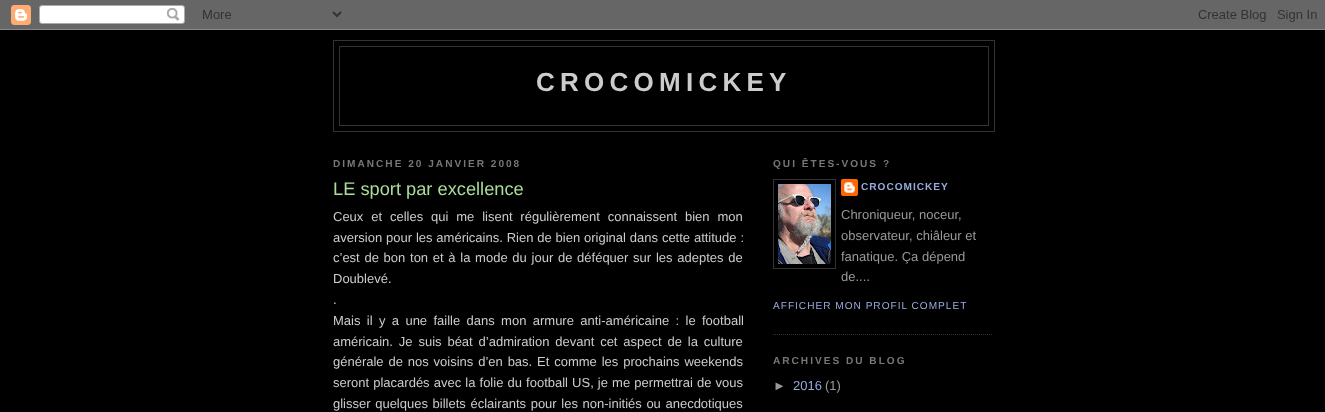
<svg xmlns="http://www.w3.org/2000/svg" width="1325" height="412">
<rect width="100%" height="100%" fill="#000"/>
<image x="0" y="0" width="1325" height="30" href="media/1.png"/>
<rect x="333.5" y="40.5" width="661" height="91" fill="none" stroke="#333"/>
<rect x="339.5" y="46.5" width="649" height="79" fill="none" stroke="#333"/>
<text x="536" y="91" style="font-family:Liberation Sans;font-size:26px;font-weight:bold;letter-spacing:5.25px;fill:#ccc">CROCOMICKEY</text>
<text x="333" y="167" style="font-family:Liberation Sans;font-size:10.1px;font-weight:bold;letter-spacing:2px;fill:#777">DIMANCHE 20 JANVIER 2008</text>
<text x="333" y="195" style="font-family:Liberation Sans;font-size:18.25px;fill:#ad9">LE sport par excellence</text>
<text x="333" y="221" word-spacing="4.25" style="font-family:Liberation Sans;font-size:13px;fill:#ccc">Ceux et celles qui me lisent régulièrement connaissent bien mon</text>
<text x="333" y="242" word-spacing="0.25" style="font-family:Liberation Sans;font-size:13px;fill:#ccc">aversion pour les américains. Rien de bien original dans cette attitude :</text>
<text x="333" y="262" word-spacing="1.1" style="font-family:Liberation Sans;font-size:13px;fill:#ccc">c’est de bon ton et à la mode du jour de déféquer sur les adeptes de</text>
<text x="333" y="283" style="font-family:Liberation Sans;font-size:13px;fill:#ccc">Doublevé.</text>
<text x="333" y="304" style="font-family:Liberation Sans;font-size:13px;fill:#ccc">.</text>
<text x="333" y="325" word-spacing="2.75" style="font-family:Liberation Sans;font-size:13px;fill:#ccc">Mais il y a une faille dans mon armure anti-américaine : le football</text>
<text x="333" y="346" word-spacing="2.25" style="font-family:Liberation Sans;font-size:13px;fill:#ccc">américain. Je suis béat d’admiration devant cet aspect de la culture</text>
<text x="333" y="366" word-spacing="1.25" style="font-family:Liberation Sans;font-size:13px;fill:#ccc">générale de nos voisins d’en bas. Et comme les prochains weekends</text>
<text x="333" y="387" word-spacing="0.5" style="font-family:Liberation Sans;font-size:13px;fill:#ccc">seront placardés avec la folie du football US, je me permettrai de vous</text>
<text x="333" y="408" word-spacing="1" style="font-family:Liberation Sans;font-size:13px;fill:#ccc">glisser quelques billets éclairants pour les non-initiés ou anecdotiques</text>
<path d="M773 334.5h220" fill="none" stroke="#333" stroke-dasharray="1 1"/>
<text x="773" y="167" style="font-family:Liberation Sans;font-size:10.1px;font-weight:bold;letter-spacing:2px;fill:#777">QUI ÊTES-VOUS ?</text>
<rect x="773.5" y="179.5" width="62" height="89" fill="none" stroke="#333"/>
<image x="778" y="184" width="53" height="80" href="media/2.png"/>
<image x="841" y="179" width="17" height="17" href="media/3.png"/>
<text x="861" y="190" style="font-family:Liberation Sans;font-size:10.1px;font-weight:bold;letter-spacing:1px;fill:#9ad">CROCOMICKEY</text>
<text x="841" y="219" style="font-family:Liberation Sans;font-size:13px;fill:#999">Chroniqueur, noceur,</text>
<text x="841" y="240" style="font-family:Liberation Sans;font-size:13px;fill:#999">observateur, chiâleur et</text>
<text x="841" y="261" style="font-family:Liberation Sans;font-size:13px;fill:#999">fanatique. Ça dépend</text>
<text x="841" y="281" style="font-family:Liberation Sans;font-size:13px;fill:#999">de....</text>
<text x="773" y="309" style="font-family:Liberation Sans;font-size:10.1px;letter-spacing:1px;fill:#9ad">AFFICHER MON PROFIL COMPLET</text>
<text x="773" y="364" style="font-family:Liberation Sans;font-size:10.1px;font-weight:bold;letter-spacing:2px;fill:#777">ARCHIVES DU BLOG</text>
<text x="773" y="390" style="font-family:Liberation Sans;font-size:13px;fill:#999">►</text>
<text x="793" y="390" style="font-family:Liberation Sans;font-size:13px;fill:#9ad">2016</text>
<text x="825" y="390" style="font-family:Liberation Sans;font-size:13px;fill:#999">(1)</text>
</svg>
